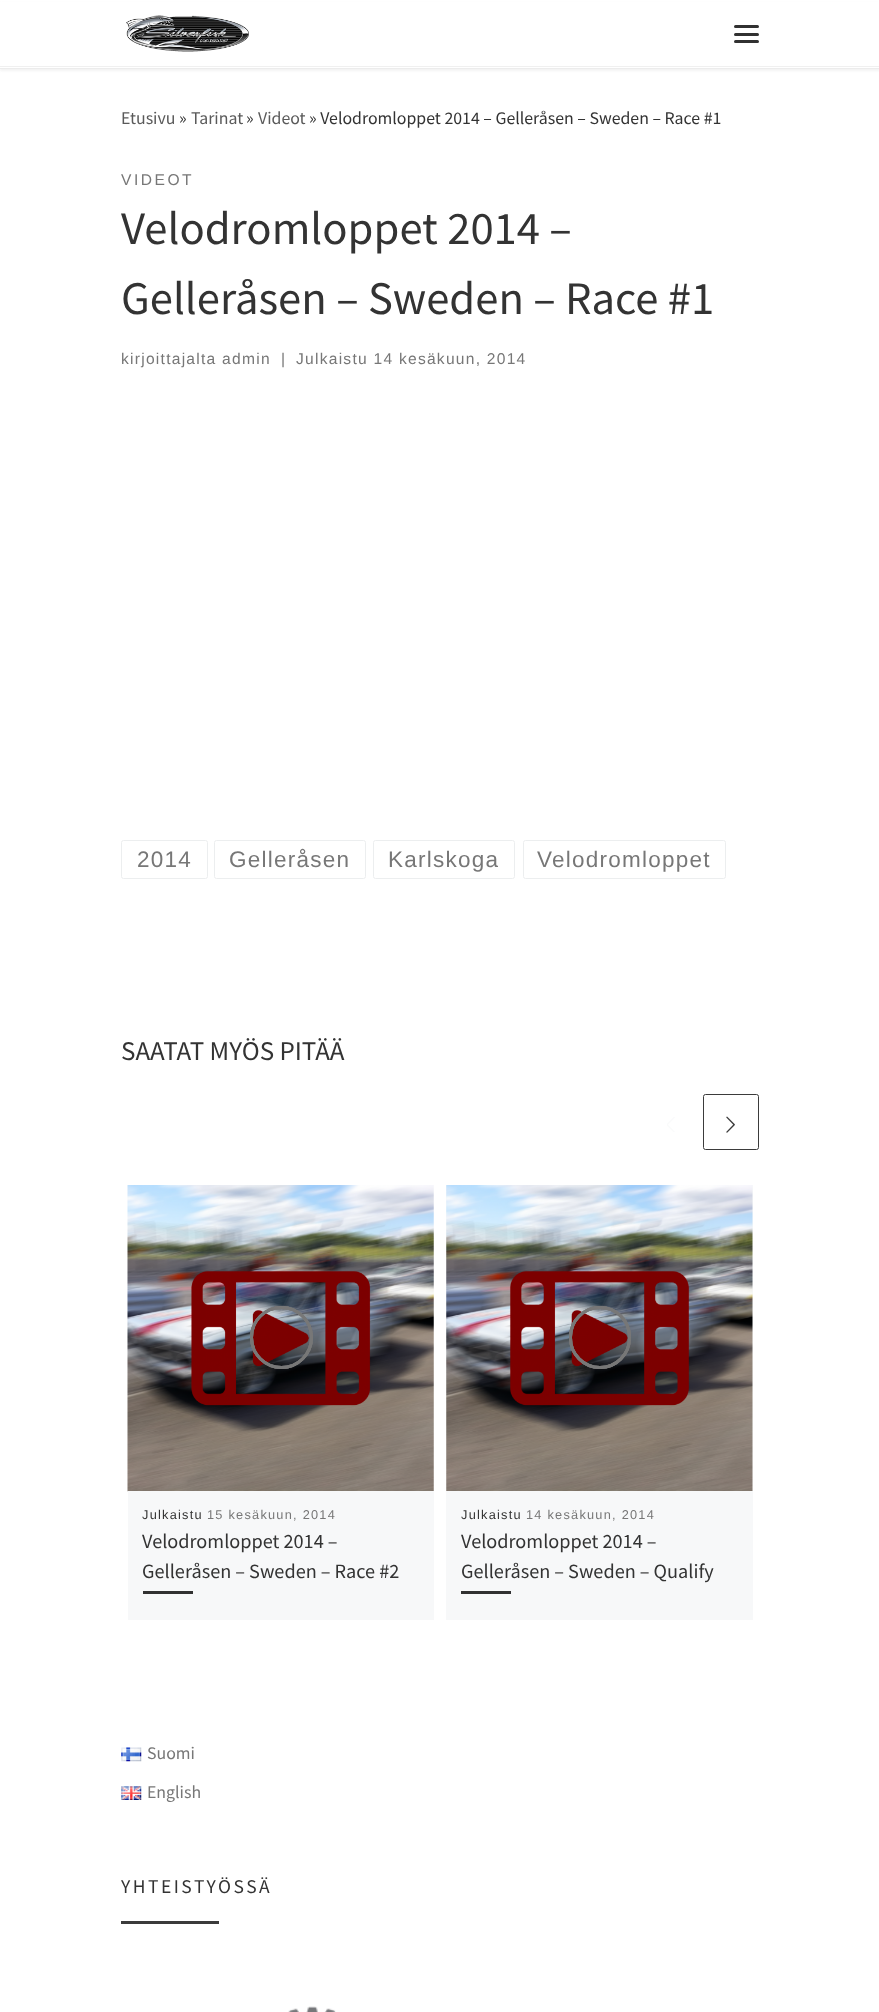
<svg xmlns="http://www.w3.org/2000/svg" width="879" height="2012">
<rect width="100%" height="100%" fill="#fff"/>
<rect y="3" width="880" height="68" fill="#66666614" filter="blur(1px)"/>
<rect y="2" width="879" height="66" fill="#fff"/>
<rect y="68" width="879" height="1" fill="#ececec"/>
<image x="126" y="15" width="123" height="37" href="media/1.png"/>
<rect x="734" y="25" width="25" height="3" rx="1.5" fill="#313131"/>
<rect x="734" y="33" width="25" height="3" rx="1.5" fill="#313131"/>
<rect x="734" y="40" width="25" height="3" rx="1.5" fill="#313131"/>
<rect y="66" width="879" height="1" fill="#f0f0f0"/>
<text x="121" y="124" style="font-family:Source Sans Pro;font-size:17.8px;fill:#5a5a5a">Etusivu</text>
<text x="179" y="124" style="font-family:Source Sans Pro;font-size:17.8px;fill:#333">»</text>
<text x="191" y="124" style="font-family:Source Sans Pro;font-size:17.8px;fill:#5a5a5a">Tarinat</text>
<text x="246" y="124" style="font-family:Source Sans Pro;font-size:17.8px;fill:#333">»</text>
<text x="258" y="124" style="font-family:Source Sans Pro;font-size:17.8px;fill:#5a5a5a">Videot</text>
<text x="309" y="124" style="font-family:Source Sans Pro;font-size:17.8px;fill:#333">» Velodromloppet 2014 – Gelleråsen – Sweden – Race #1</text>
<text x="121" y="185" style="font-family:Liberation Sans;font-size:15.6px;letter-spacing:2.5px;fill:#777">VIDEOT</text>
<text x="121" y="244" style="font-family:Source Sans Pro;font-size:46.7px;fill:#333">Velodromloppet 2014 –</text>
<text x="121" y="314" style="font-family:Source Sans Pro;font-size:46.7px;fill:#333">Gelleråsen – Sweden – Race #1</text>
<text x="121" y="364" style="font-family:Liberation Sans;font-size:15.6px;letter-spacing:1.25px;fill:#777">kirjoittajalta admin</text>
<text x="281" y="364" style="font-family:Liberation Sans;font-size:15.6px;letter-spacing:1.25px;fill:#777">|</text>
<text x="296" y="364" style="font-family:Liberation Sans;font-size:15.6px;letter-spacing:1.25px;fill:#777">Julkaistu 14 kesäkuun, 2014</text>
<rect x="121.5" y="840.5" width="86" height="38" rx="2" fill="none" stroke="#eceeef"/>
<text x="137" y="867" style="font-family:Liberation Sans;font-size:22.5px;letter-spacing:1.25px;fill:#777">2014</text>
<rect x="214.5" y="840.5" width="151" height="38" rx="2" fill="none" stroke="#eceeef"/>
<text x="229" y="867" style="font-family:Liberation Sans;font-size:22.5px;letter-spacing:1.25px;fill:#777">Gelleråsen</text>
<rect x="373.5" y="840.5" width="141" height="38" rx="2" fill="none" stroke="#eceeef"/>
<text x="388" y="867" style="font-family:Liberation Sans;font-size:22.5px;letter-spacing:1.25px;fill:#777">Karlskoga</text>
<rect x="523.5" y="840.5" width="202" height="38" rx="2" fill="none" stroke="#eceeef"/>
<text x="537" y="867" style="font-family:Liberation Sans;font-size:22.5px;letter-spacing:1.25px;fill:#777">Velodromloppet</text>
<text x="121" y="1060" style="font-family:Source Sans Pro;font-size:27px;fill:#333">SAATAT MYÖS PITÄÄ</text>
<image x="667" y="1117" width="8" height="15" href="media/2.png"/>
<rect x="703.5" y="1094.5" width="55" height="55" rx="2" fill="none" stroke="#3b3b3b"/>
<image x="726" y="1116" width="9" height="17" href="media/3.png"/>
<image x="127" y="1185" width="307" height="307" href="media/4.png"/>
<circle cx="281.5" cy="1337.5" r="30" fill="none" stroke="#777777fc" stroke-width="3"/>
<circle cx="281.5" cy="1337.5" r="30" fill="none" stroke="#777777fc" stroke-width="3"/>
<circle cx="281.5" cy="1337.5" r="30" fill="none" stroke="#777777fc" stroke-width="3"/>
<rect x="128" y="1491" width="306" height="129" fill="#f7f8f9"/>
<text x="142" y="1519" style="font-family:Liberation Sans;font-size:12.75px;letter-spacing:1.25px;fill:#333">Julkaistu</text>
<text x="207" y="1519" style="font-family:Liberation Sans;font-size:12.75px;letter-spacing:1.25px;fill:#777">15 kesäkuun, 2014</text>
<text x="142" y="1548" style="font-family:Source Sans Pro;font-size:20.25px;fill:#333">Velodromloppet 2014 –</text>
<text x="142" y="1578" style="font-family:Source Sans Pro;font-size:20.25px;fill:#333">Gelleråsen – Sweden – Race #2</text>
<rect x="143" y="1591" width="50" height="3" fill="#313131"/>
<rect x="446" y="1185" width="307" height="435" fill="#f7f8f9"/>
<image x="446" y="1185" width="307" height="306" href="media/5.png"/>
<rect x="570.5" y="1307.5" width="59" height="60" rx="29.5" fill="none" stroke="#777777fc" stroke-width="3"/>
<rect x="570.5" y="1307.5" width="59" height="60" rx="29.5" fill="none" stroke="#777777fc" stroke-width="3"/>
<rect x="570.5" y="1307.5" width="59" height="60" rx="29.5" fill="none" stroke="#777777fc" stroke-width="3"/>
<text x="461" y="1519" style="font-family:Liberation Sans;font-size:12.75px;letter-spacing:1.25px;fill:#333">Julkaistu</text>
<text x="526" y="1519" style="font-family:Liberation Sans;font-size:12.75px;letter-spacing:1.25px;fill:#777">14 kesäkuun, 2014</text>
<text x="461" y="1548" style="font-family:Source Sans Pro;font-size:20.25px;fill:#333">Velodromloppet 2014 –</text>
<text x="461" y="1578" style="font-family:Source Sans Pro;font-size:20.25px;fill:#333">Gelleråsen – Sweden – Qualify</text>
<rect x="461" y="1591" width="50" height="3" fill="#313131"/>
<image x="121" y="1747" width="21" height="15" href="media/6.png"/>
<text x="147" y="1759" style="font-family:Source Sans Pro;font-size:17.8px;fill:#777">Suomi</text>
<image x="121" y="1786" width="21" height="14" href="media/7.png"/>
<text x="147" y="1798" style="font-family:Source Sans Pro;font-size:17.8px;fill:#777">English</text>
<text x="121" y="1893" style="font-family:Source Sans Pro;font-size:19.5px;letter-spacing:2.5px;fill:#333">YHTEISTYÖSSÄ</text>
<rect x="121" y="1921" width="98" height="3" fill="#3b3b3b"/>
<image x="288" y="2006" width="48" height="6" href="media/8.png"/>
</svg>
